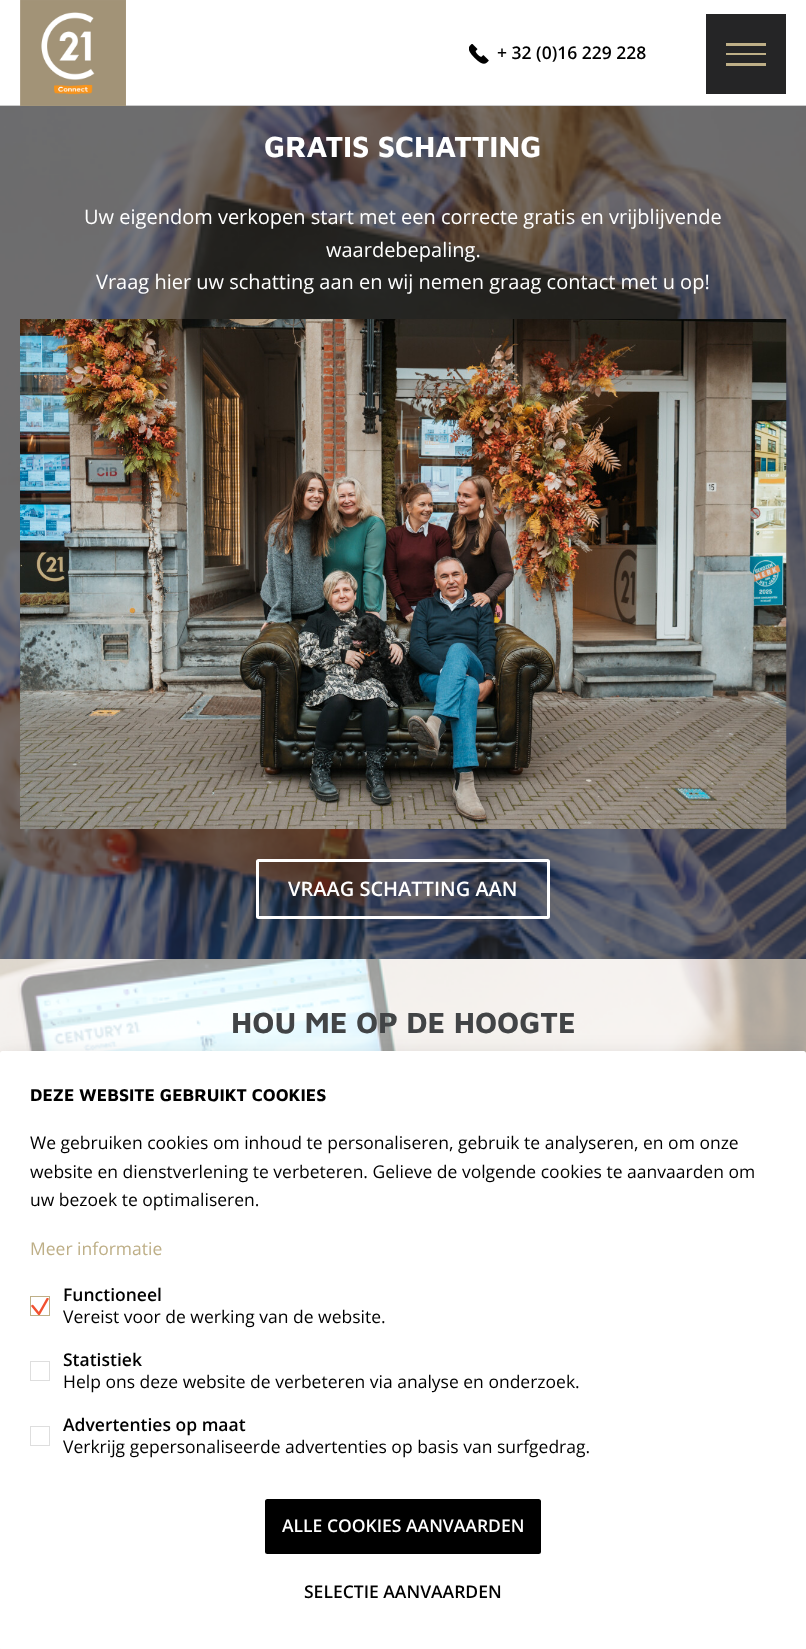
<svg xmlns="http://www.w3.org/2000/svg" width="806" height="1649">
<defs>
<clipPath id="clip1"><rect x="31" y="1298" width="18" height="17"/></clipPath>
</defs>
<rect width="100%" height="100%" fill="#fff"/>
<rect y="105" width="806" height="1" fill="#ccc"/>
<image x="20" y="0" width="106" height="106" href="media/1.png"/>
<image x="469" y="44" width="20" height="20" href="media/2.png"/>
<text x="497" y="59" style="font-family:Open Sans;font-size:17.5px;font-weight:600;fill:#000">+ 32 (0)16 229 228</text>
<rect x="726" y="53" width="40" height="2" fill="#beaf87"/>
<rect x="726" y="14" width="40" height="39" fill="#252526"/>
<rect x="766" y="14" width="20" height="41" fill="#252526"/>
<rect x="726" y="55" width="60" height="39" fill="#252526"/>
<rect x="706" y="14" width="20" height="80" fill="#252526"/>
<rect x="726" y="43" width="40" height="3" fill="#beaf87"/>
<rect x="726" y="63" width="40" height="3" fill="#beaf87"/>
<image x="0" y="106" width="806" height="853" href="media/3.png"/>
<text x="264" y="157" style="font-family:Maven Pro;font-size:30px;font-weight:bold;fill:#fff">GRATIS SCHATTING</text>
<text x="84" y="224" style="font-family:Open Sans;font-size:20px;fill:#fff">Uw eigendom verkopen start met een correcte gratis en vrijblijvende</text>
<text x="326" y="257" style="font-family:Open Sans;font-size:20px;fill:#fff">waardebepaling.</text>
<text x="96" y="289" style="font-family:Open Sans;font-size:20px;fill:#fff">Vraag hier uw schatting aan en wij nemen graag contact met u op!</text>
<image x="20" y="319" width="767" height="510" href="media/4.png"/>
<rect x="257.5" y="860.5" width="291" height="57" rx="1" fill="none" stroke="#fff" stroke-width="3"/>
<text x="288" y="896" style="font-family:Open Sans;font-size:20px;font-weight:600;fill:#fff">VRAAG SCHATTING AAN</text>
<image x="0" y="959" width="806" height="95" href="media/5.png"/>
<text x="231" y="1033" style="font-family:Maven Pro;font-size:30px;font-weight:bold;fill:#424446">HOU ME OP DE HOOGTE</text>
<rect y="1056" width="806" height="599" rx="2.5" fill="#33333329" filter="blur(10px)"/>
<rect y="1051" width="806" height="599" rx="2.5" fill="#fff"/>
<text x="30" y="1101" style="font-family:Maven Pro;font-size:17.5px;font-weight:bold;fill:#000">DEZE WEBSITE GEBRUIKT COOKIES</text>
<text x="30" y="1149" style="font-family:Open Sans;font-size:17.5px;fill:#000">We gebruiken cookies om inhoud te personaliseren, gebruik te analyseren, en om onze</text>
<text x="30" y="1178" style="font-family:Open Sans;font-size:17.5px;fill:#000">website en dienstverlening te verbeteren. Gelieve de volgende cookies te aanvaarden om</text>
<text x="30" y="1206" style="font-family:Open Sans;font-size:17.5px;fill:#000">uw bezoek te optimaliseren.</text>
<text x="30" y="1255" style="font-family:Open Sans;font-size:17.5px;fill:#beaf87">Meer informatie</text>
<text x="63" y="1301" style="font-family:Open Sans;font-size:17.5px;font-weight:600;fill:#000">Functioneel</text>
<rect x="30.5" y="1296.5" width="19" height="19" fill="none" stroke="#beaf87"/>
<g clip-path="url(#clip1)">
<path d="M32.5 1306l6.5 8l8.5-15" fill="none" stroke="#f25130" stroke-width="2.5" stroke-linecap="round" stroke-linejoin="round"/>
</g>
<text x="63" y="1323" style="font-family:Open Sans;font-size:17.5px;fill:#000">Vereist voor de werking van de website.</text>
<text x="63" y="1366" style="font-family:Open Sans;font-size:17.5px;font-weight:600;fill:#000">Statistiek</text>
<rect x="30.5" y="1361.5" width="19" height="19" fill="none" stroke="#dedede"/>
<text x="63" y="1388" style="font-family:Open Sans;font-size:17.5px;fill:#000">Help ons deze website de verbeteren via analyse en onderzoek.</text>
<rect x="30.5" y="1426.5" width="19" height="19" fill="none" stroke="#dedede"/>
<text x="63" y="1431" style="font-family:Open Sans;font-size:17.5px;font-weight:600;fill:#000">Advertenties op maat</text>
<text x="63" y="1453" style="font-family:Open Sans;font-size:17.5px;fill:#000">Verkrijg gepersonaliseerde advertenties op basis van surfgedrag.</text>
<rect x="266.5" y="1500.5" width="273" height="52" rx="1" fill="#000" stroke="#000" stroke-width="3"/>
<text x="282" y="1532" style="font-family:Open Sans;font-size:17.5px;font-weight:600;fill:#fff">ALLE COOKIES AANVAARDEN</text>
<text x="304" y="1598" style="font-family:Open Sans;font-size:17.5px;font-weight:600;fill:#000">SELECTIE AANVAARDEN</text>
</svg>
